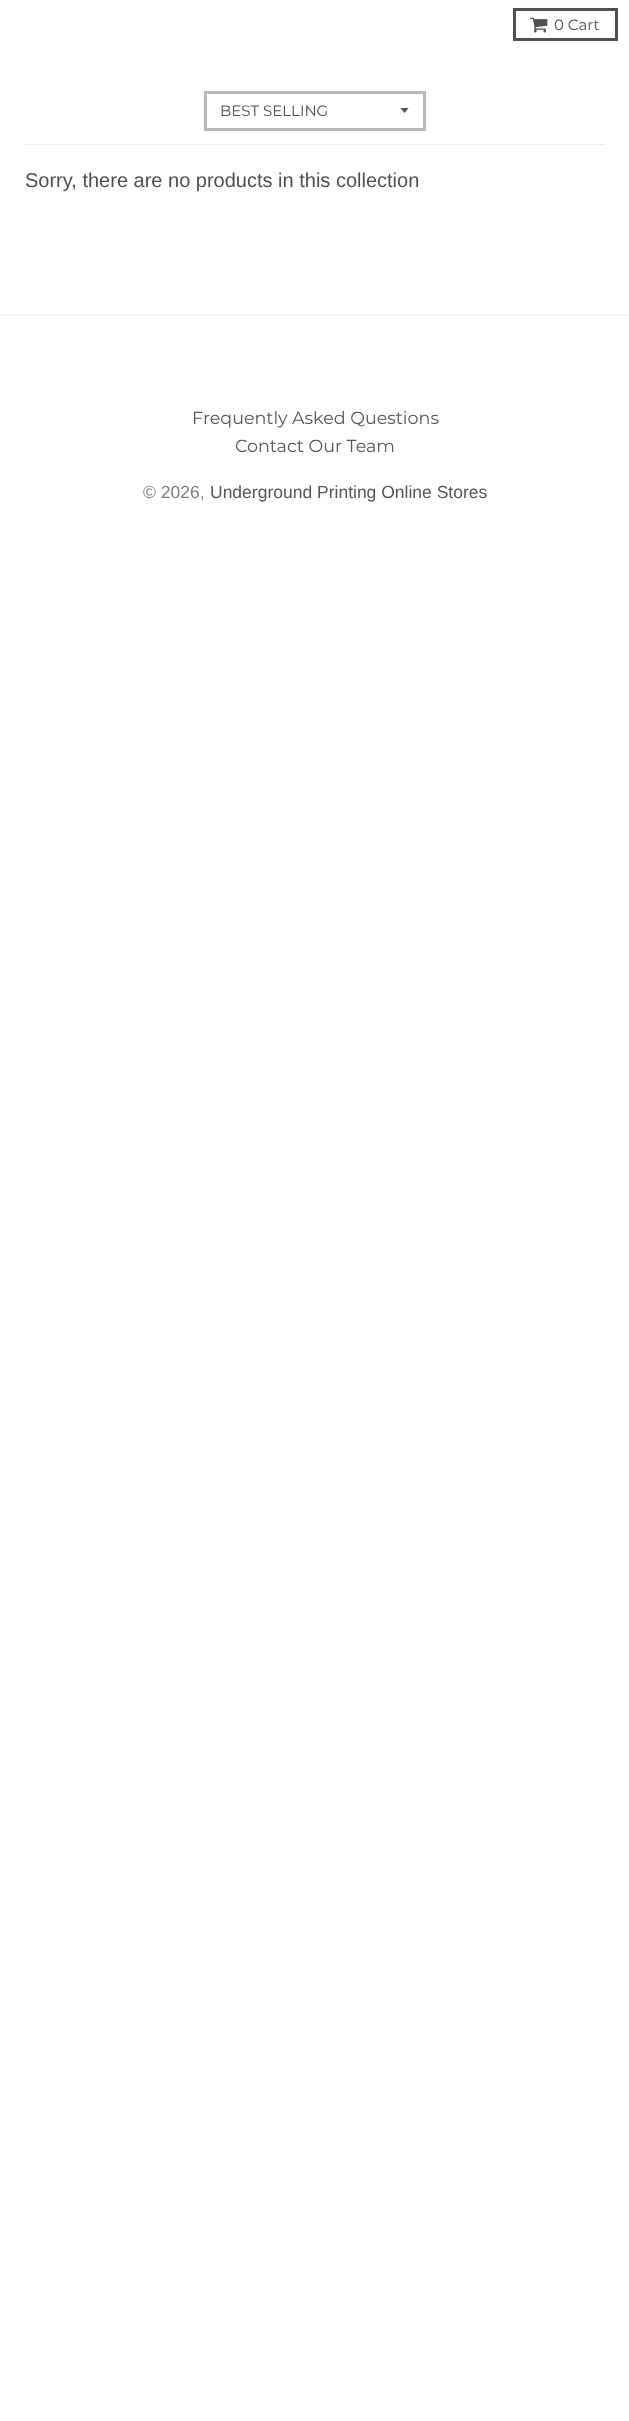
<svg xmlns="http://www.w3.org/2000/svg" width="629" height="2421">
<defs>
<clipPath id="clip1"><rect x="400" y="108" width="10" height="6"/></clipPath>
</defs>
<rect width="100%" height="100%" fill="#fff"/>
<rect x="514.5" y="9.5" width="102" height="30" fill="none" stroke="#505050" stroke-width="3"/>
<image x="530" y="17" width="18" height="16" href="media/1.png"/>
<text x="554" y="30" style="font-family:Montserrat;font-size:15px;fill:#4f4f4f">0 Cart</text>
<rect y="315" width="629" height="1" fill="#ededed"/>
<rect x="25" y="144" width="580" height="1" fill="#ededed"/>
<g clip-path="url(#clip1)">
<path d="M400 107.5l4.5 5.5l4.5-5.5z" fill="#4f4f4f"/>
</g>
<rect x="205.5" y="92.5" width="219" height="37" fill="none" stroke="#b8b8b8" stroke-width="3"/>
<text x="220" y="116" style="font-family:Montserrat;font-size:15px;fill:#4f4f4f">BEST SELLING</text>
<text x="25" y="187" style="font-family:Liberation Sans;font-size:20px;fill:#4f4f4f">Sorry, there are no products in this collection</text>
<text x="192" y="424" style="font-family:Montserrat;font-size:17.5px;fill:#565656">Frequently Asked Questions</text>
<text x="235" y="452" style="font-family:Montserrat;font-size:17.5px;fill:#565656">Contact Our Team</text>
<text x="143" y="498" style="font-family:Liberation Sans;font-size:17.5px;fill:#7f7f7f">© 2026,</text>
<text x="210" y="498" style="font-family:Liberation Sans;font-size:17.5px;fill:#565656">Underground Printing Online Stores</text>
</svg>
